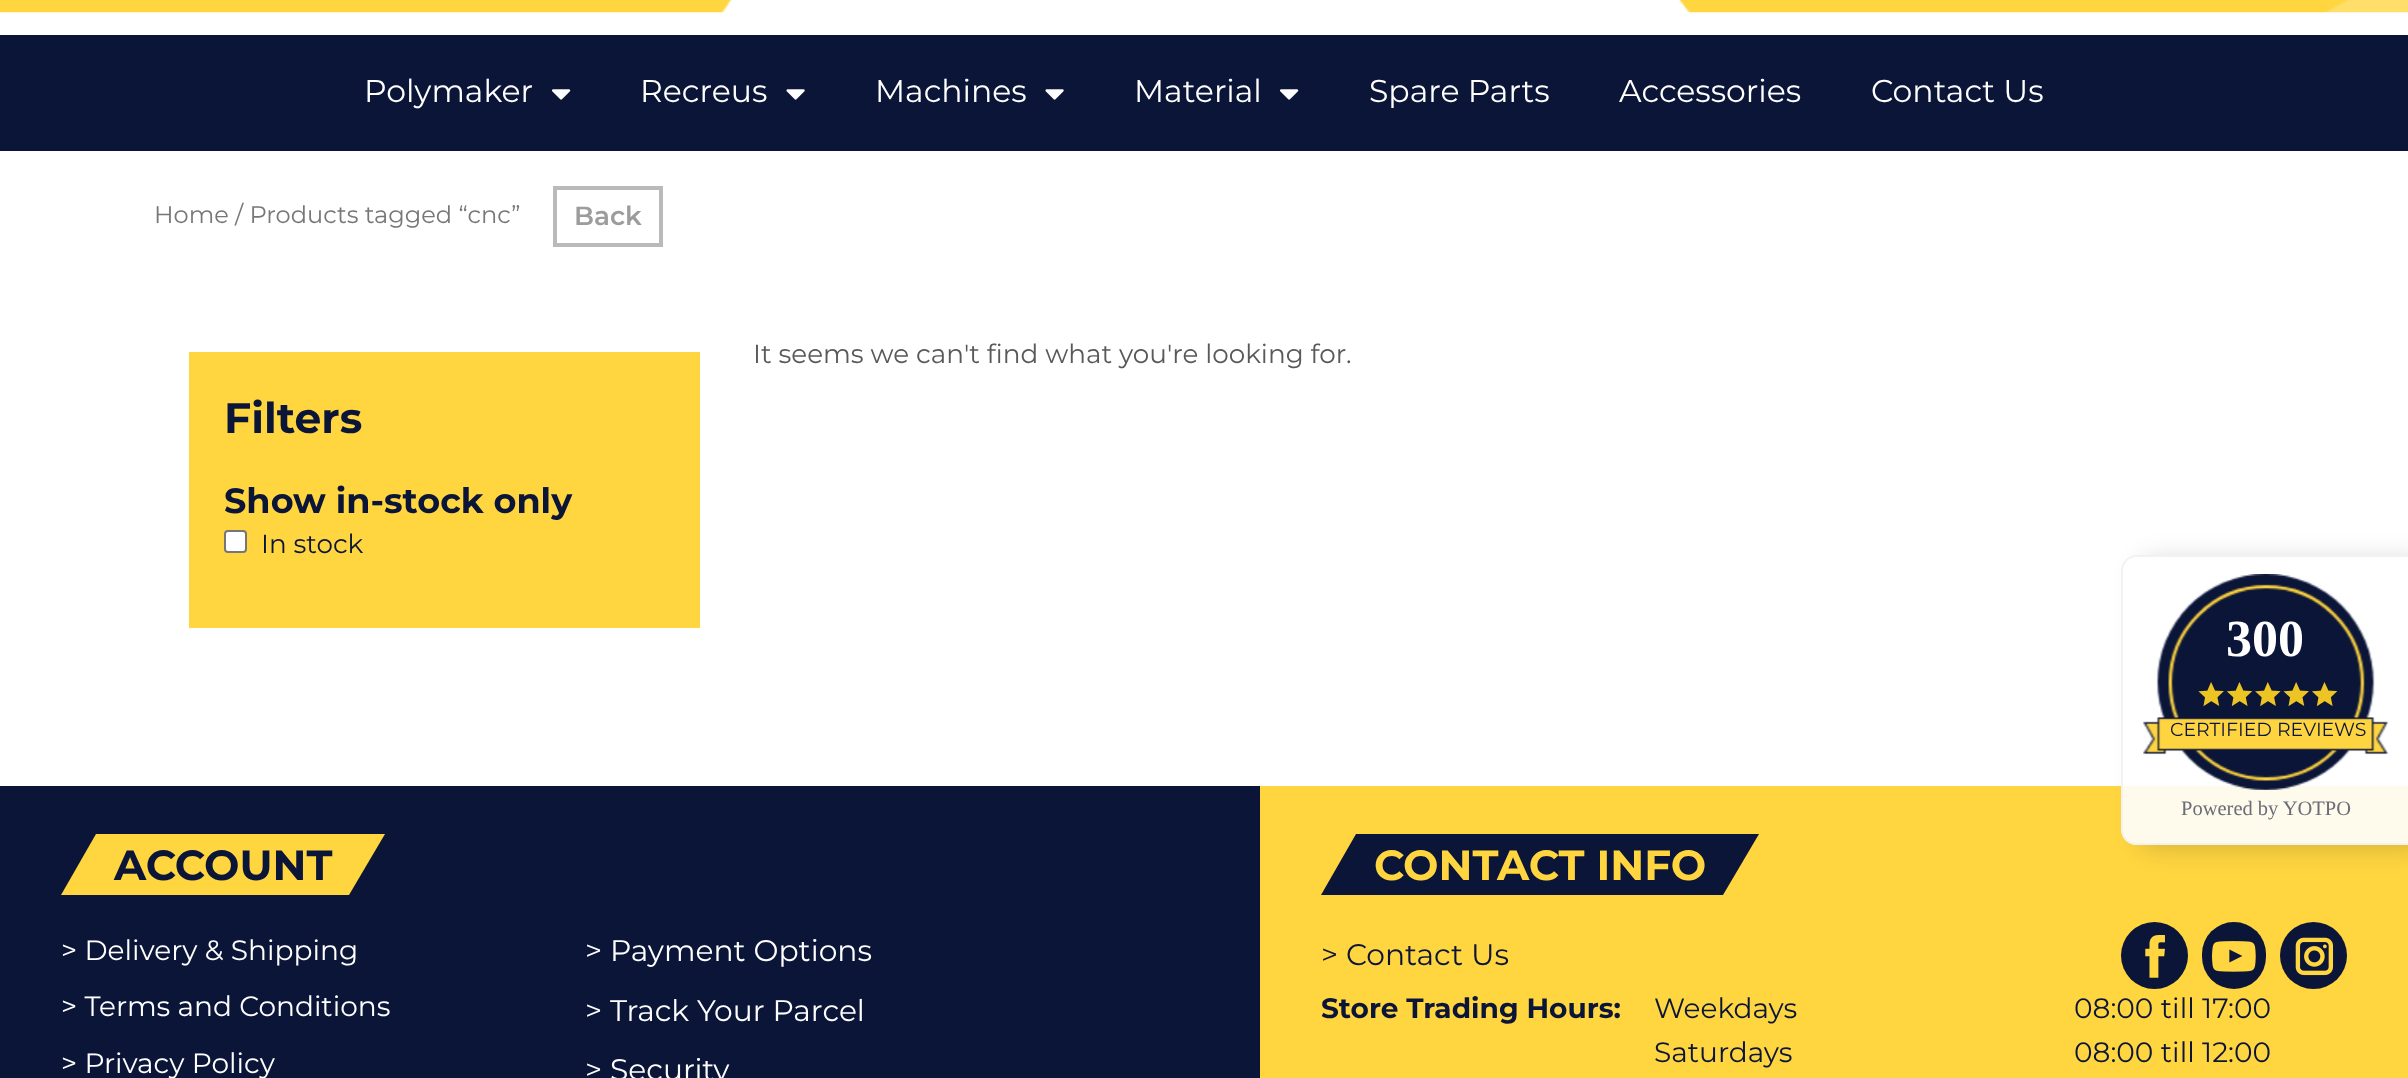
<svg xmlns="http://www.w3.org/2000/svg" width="2408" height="1078">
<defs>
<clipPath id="clip1"><path d="M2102 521h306v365h-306zm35 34h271v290h-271c-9 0-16-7-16-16v-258c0-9 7-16 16-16z" clip-rule="evenodd"/></clipPath>
</defs>
<rect width="100%" height="100%" fill="#fff"/>
<image x="0" y="0" width="732" height="13" href="media/1.png"/>
<image x="1678" y="0" width="730" height="13" href="media/2.png"/>
<rect y="35" width="2408" height="116" fill="#0b1538"/>
<text x="364" y="102" style="font-family:Montserrat;font-size:31.5px;fill:#fff">Polymaker</text>
<image x="552" y="89" width="19" height="11" href="media/3.png"/>
<text x="640" y="102" style="font-family:Montserrat;font-size:31.5px;fill:#fff">Recreus</text>
<image x="786" y="89" width="19" height="11" href="media/4.png"/>
<text x="875" y="102" style="font-family:Montserrat;font-size:31.5px;fill:#fff">Machines</text>
<image x="1045" y="89" width="19" height="11" href="media/4.png"/>
<text x="1134" y="102" style="font-family:Montserrat;font-size:31.5px;fill:#fff">Material</text>
<image x="1280" y="89" width="19" height="11" href="media/3.png"/>
<text x="1369" y="102" style="font-family:Montserrat;font-size:31.5px;fill:#fff">Spare Parts</text>
<text x="1619" y="102" style="font-family:Montserrat;font-size:31.5px;fill:#fff">Accessories</text>
<text x="1871" y="102" style="font-family:Montserrat;font-size:31.5px;fill:#fff">Contact Us</text>
<text x="154" y="223" style="font-family:Montserrat;font-size:24.1px;fill:#777">Home / Products tagged “cnc”</text>
<rect x="555" y="188" width="106" height="57" fill="none" stroke="#bababa" stroke-width="4"/>
<text x="574" y="225" style="font-family:Montserrat;font-size:26.25px;font-weight:600;fill:#9c9c9c">Back</text>
<text x="753" y="363" style="font-family:Montserrat;font-size:26.25px;fill:#58595b">It seems we can't find what you're looking for.</text>
<rect x="189" y="352" width="511" height="276" fill="#ffd540"/>
<text x="224" y="433" style="font-family:Montserrat;font-size:42.5px;font-weight:bold;fill:#0b1538">Filters</text>
<text x="224" y="513" style="font-family:Montserrat;font-size:35px;font-weight:bold;fill:#0b1538">Show in-stock only</text>
<rect x="225" y="531" width="21" height="21" rx="3" fill="#fff" stroke="#767676" stroke-width="2"/>
<text x="261" y="553" style="font-family:Montserrat;font-size:26.25px;fill:#0b1538">In stock</text>
<rect x="1260" y="786" width="1148" height="292" fill="#ffd540"/>
<g clip-path="url(#clip1)">
<rect x="2139" y="558" width="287" height="291" rx="16" fill="#00000026" filter="blur(12px)"/>
</g>
<path d="M2137 555h271v290h-271c-9 0-16-7-16-16v-258c0-9 7-16 16-16z" fill="#ffffffe6"/>
<path d="M2137 555h271v290h-271c-9 0-16-7-16-16v-258c0-9 7-16 16-16zm0 2h271v286h-271c-8 0-14-6-14-14v-258c0-8 6-14 14-14z" fill="#f2f2f2" fill-rule="evenodd"/>
<image x="2143" y="574" width="246" height="216" href="media/5.png"/>
<text x="2226" y="656" style="font-family:Liberation Serif;font-size:52px;font-weight:bold;fill:#fff">300</text>
<image x="2198" y="682" width="26" height="25" href="media/6.png"/>
<image x="2226" y="682" width="27" height="25" href="media/7.png"/>
<image x="2255" y="682" width="26" height="25" href="media/8.png"/>
<image x="2283" y="682" width="26" height="25" href="media/9.png"/>
<image x="2312" y="682" width="26" height="24" href="media/10.png"/>
<text x="2170" y="736" style="font-family:Montserrat;font-size:18.9px;fill:#0b1538">CERTIFIED REVIEWS</text>
<text x="2181" y="815" style="font-family:Liberation Serif;font-size:20.5px;fill:#6a6c77">Powered by YOTPO</text>
<rect y="786" width="1260" height="292" fill="#0b1538"/>
<path d="M96 834h289l-36 61h-288z" fill="#ffd540"/>
<text x="114" y="880" style="font-family:Montserrat;font-size:42px;font-weight:bold;fill:#0b1538">ACCOUNT</text>
<text x="61" y="960" style="font-family:Montserrat;font-size:28px;fill:#fff">&gt; Delivery &amp; Shipping</text>
<text x="61" y="1016" style="font-family:Montserrat;font-size:28px;fill:#fff">&gt; Terms and Conditions</text>
<text x="61" y="1073" style="font-family:Montserrat;font-size:28px;fill:#fff">&gt; Privacy Policy</text>
<text x="585" y="961" style="font-family:Montserrat;font-size:29.75px;fill:#fff">&gt; Payment Options</text>
<text x="585" y="1021" style="font-family:Montserrat;font-size:29.75px;fill:#fff">&gt; Track Your Parcel</text>
<text x="585" y="1080" style="font-family:Montserrat;font-size:29.75px;fill:#fff">&gt; Security</text>
<path d="M1356 834h403l-36 61h-402z" fill="#0b1538"/>
<text x="1374" y="880" style="font-family:Montserrat;font-size:42px;font-weight:bold;fill:#ffd540">CONTACT INFO</text>
<text x="1321" y="965" style="font-family:Montserrat;font-size:29.75px;fill:#0b1538">&gt; Contact Us</text>
<circle cx="2154.5" cy="955.5" r="33.5" fill="#0b1538"/>
<image x="2145" y="935" width="20" height="43" href="media/11.png"/>
<rect x="2202" y="922" width="64" height="67" rx="32" fill="#0b1538"/>
<image x="2212" y="941" width="44" height="31" href="media/12.png"/>
<circle cx="2313.5" cy="955.5" r="33.5" fill="#0b1538"/>
<image x="2295" y="937" width="39" height="39" href="media/13.png"/>
<text x="1321" y="1018" style="font-family:Montserrat;font-size:28px;font-weight:bold;fill:#0b1538">Store Trading Hours:</text>
<text x="1654" y="1018" style="font-family:Montserrat;font-size:28px;fill:#0b1538">Weekdays</text>
<text x="1654" y="1062" style="font-family:Montserrat;font-size:28px;fill:#0b1538">Saturdays</text>
<text x="2074" y="1018" style="font-family:Montserrat;font-size:28px;fill:#0b1538">08:00 till 17:00</text>
<text x="2074" y="1062" style="font-family:Montserrat;font-size:28px;fill:#0b1538">08:00 till 12:00</text>
</svg>
